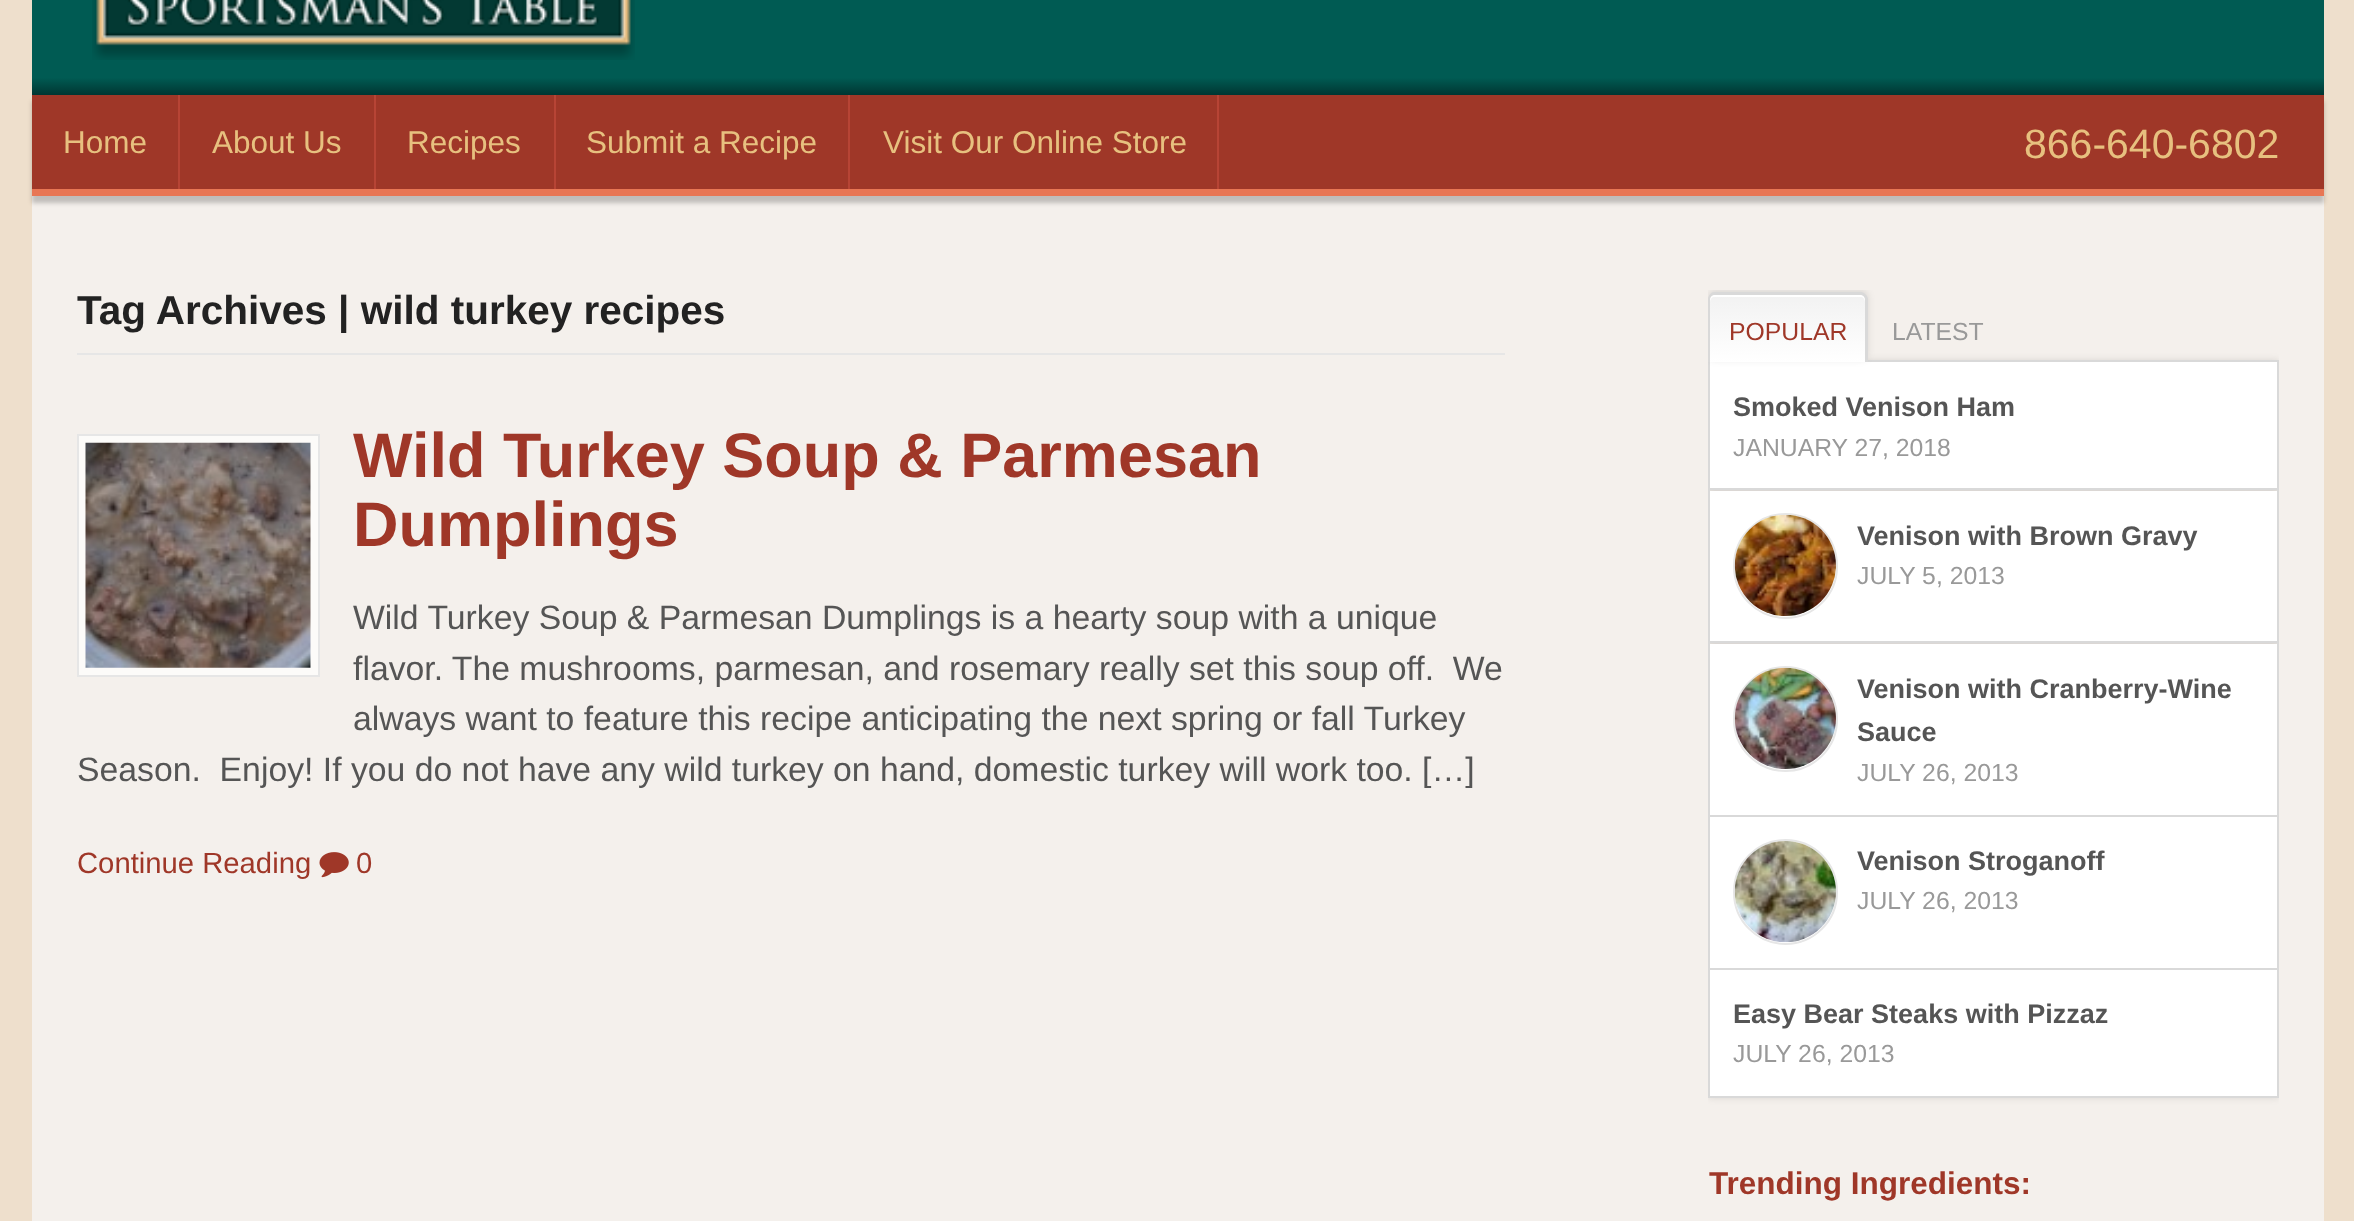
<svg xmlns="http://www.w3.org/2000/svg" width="2354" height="1221">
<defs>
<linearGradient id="g1" gradientUnits="userSpaceOnUse" x1="1178" y1="-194" x2="1178" y2="95"><stop offset="0.94" stop-color="#005b53"/><stop offset="1" stop-color="#003632"/></linearGradient>
<clipPath id="clip1"><rect x="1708" y="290" width="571" height="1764"/></clipPath>
<linearGradient id="g2" gradientUnits="userSpaceOnUse" x1="1788" y1="295" x2="1788" y2="362"><stop offset="0" stop-color="#f2f2f2"/><stop offset="1" stop-color="#fff"/></linearGradient>
</defs>
<rect width="100%" height="100%" fill="#eedfcc"/>
<rect x="32" y="196" width="2292" height="1025" fill="#f4f0ec"/>
<rect x="32" width="2292" height="95" fill="url(#g1)"/>
<image x="92" y="0" width="543" height="60" href="media/1.png"/>
<rect x="32" y="101" width="2292" height="102" fill="#00000036" filter="blur(2px)"/>
<rect x="32" y="95" width="2292" height="94" fill="#9f3728"/>
<rect x="32" y="189" width="2292" height="7" fill="#e87654"/>
<rect x="178" y="95" width="2" height="94" fill="#b74435"/>
<text x="63" y="153" style="font-family:Liberation Sans;font-size:31.5px;fill:#e7c07f">Home</text>
<rect x="374" y="95" width="2" height="94" fill="#b74435"/>
<text x="212" y="153" style="font-family:Liberation Sans;font-size:31.5px;fill:#e7c07f">About Us</text>
<rect x="554" y="95" width="2" height="94" fill="#b74435"/>
<text x="407" y="153" style="font-family:Liberation Sans;font-size:31.5px;fill:#e7c07f">Recipes</text>
<rect x="848" y="95" width="2" height="94" fill="#b74435"/>
<text x="586" y="153" style="font-family:Liberation Sans;font-size:31.5px;fill:#e7c07f">Submit a Recipe</text>
<rect x="1217" y="95" width="2" height="94" fill="#b74435"/>
<text x="883" y="153" style="font-family:Liberation Sans;font-size:31.5px;fill:#e7c07f">Visit Our Online Store</text>
<text x="2024" y="158" style="font-family:Liberation Sans;font-size:41px;fill:#e7c07f">866-640-6802</text>
<rect x="77" y="353" width="1428" height="2" fill="#e6e6e6"/>
<text x="77" y="324" style="font-family:Liberation Sans;font-size:40.5px;font-weight:bold;fill:#222">Tag Archives | wild turkey recipes</text>
<rect x="78" y="435" width="241" height="241" fill="#fcfbf9" stroke="#e6e6e6" stroke-width="2"/>
<image x="85" y="442" width="226" height="226" href="media/2.png"/>
<text x="353" y="477" style="font-family:Liberation Sans;font-size:63px;font-weight:bold;fill:#9f3728">Wild Turkey Soup &amp; Parmesan</text>
<text x="353" y="546" style="font-family:Liberation Sans;font-size:63px;font-weight:bold;fill:#9f3728">Dumplings</text>
<text x="353" y="629" style="font-family:Liberation Sans;font-size:33.75px;fill:#555">Wild Turkey Soup &amp; Parmesan Dumplings is a hearty soup with a unique</text>
<text x="353" y="680" style="font-family:Liberation Sans;font-size:33.75px;fill:#555" xml:space="preserve">flavor. The mushrooms, parmesan, and rosemary really set this soup off.  We</text>
<text x="353" y="730" style="font-family:Liberation Sans;font-size:33.75px;fill:#555">always want to feature this recipe anticipating the next spring or fall Turkey</text>
<text x="77" y="781" style="font-family:Liberation Sans;font-size:33.75px;fill:#555" xml:space="preserve">Season.  Enjoy! If you do not have any wild turkey on hand, domestic turkey will work too. […]</text>
<text x="77" y="873" style="font-family:Liberation Sans;font-size:29.25px;fill:#9f3728">Continue Reading</text>
<image x="319" y="852" width="30" height="26" href="media/3.png"/>
<text x="356" y="873" style="font-family:Liberation Sans;font-size:29.25px;fill:#9f3728">0</text>
<g clip-path="url(#clip1)">
<rect x="1708" y="360" width="571" height="738" fill="#0000001a" filter="blur(3.5px)"/>
</g>
<rect x="1868" y="360" width="411" height="2" fill="#d9d9d9"/>
<rect x="1710" y="362" width="567" height="126" fill="#fff"/>
<rect x="2277" y="362" width="2" height="734" fill="#d9d9d9"/>
<rect x="1708" y="488" width="571" height="2" fill="#d9d9d9"/>
<rect x="1708" y="362" width="2" height="129" fill="#d9d9d9"/>
<g clip-path="url(#clip1)">
<rect x="1708" y="290" width="160" height="70" rx="7" fill="#0000001a" filter="blur(3.5px)"/>
</g>
<path d="M1715 295h145c3 0 5 2 5 5v62h-155v-62c0-3 2-5 5-5z" fill="url(#g2)"/>
<path d="M1714 297h147c2 0 4 2 4 5v-2c0-3-2-5-5-5h-145c-3 0-5 2-5 5v2c0-3 2-5 4-5z" fill="#fff"/>
<path d="M1714 292h147c3 0 7 4 7 7v63h-160v-63c0-3 3-7 6-7zm0 3h147c2 0 4 2 4 4v63h-155v-63c0-2 2-4 4-4z" fill="#d9d9d9" fill-rule="evenodd"/>
<text x="1729" y="340" style="font-family:Liberation Sans;font-size:24.75px;fill:#9f3728">POPULAR</text>
<text x="1892" y="340" style="font-family:Liberation Sans;font-size:24.75px;fill:#999">LATEST</text>
<rect x="1708" y="1096" width="571" height="2" fill="#d9d9d9"/>
<text x="1733" y="416" style="font-family:Liberation Sans;font-size:27px;font-weight:bold;fill:#555">Smoked Venison Ham</text>
<text x="1733" y="456" style="font-family:Liberation Sans;font-size:24.75px;fill:#999">JANUARY 27, 2018</text>
<rect x="1710" y="491" width="567" height="150" fill="#fff"/>
<rect x="1708" y="641" width="571" height="2" fill="#d9d9d9"/>
<rect x="1708" y="491" width="2" height="153" fill="#d9d9d9"/>
<rect x="1734" y="514" width="103" height="104" rx="51.5" fill="none" stroke="#e6e6e6" stroke-width="2"/>
<image x="1734" y="514" width="102" height="102" href="media/4.png"/>
<text x="1857" y="545" style="font-family:Liberation Sans;font-size:27px;font-weight:bold;fill:#555">Venison with Brown Gravy</text>
<text x="1857" y="584" style="font-family:Liberation Sans;font-size:24.75px;fill:#999">JULY 5, 2013</text>
<rect x="1710" y="644" width="567" height="171" fill="#fff"/>
<rect x="1708" y="815" width="571" height="2" fill="#d9d9d9"/>
<rect x="1708" y="644" width="2" height="173" fill="#d9d9d9"/>
<rect x="1734" y="667" width="103" height="104" rx="51.5" fill="none" stroke="#e6e6e6" stroke-width="2"/>
<image x="1734" y="667" width="102" height="102" href="media/5.png"/>
<text x="1857" y="698" style="font-family:Liberation Sans;font-size:27px;font-weight:bold;fill:#555">Venison with Cranberry-Wine</text>
<text x="1857" y="741" style="font-family:Liberation Sans;font-size:27px;font-weight:bold;fill:#555">Sauce</text>
<text x="1857" y="781" style="font-family:Liberation Sans;font-size:24.75px;fill:#999">JULY 26, 2013</text>
<rect x="1710" y="817" width="567" height="151" fill="#fff"/>
<rect x="1708" y="968" width="571" height="2" fill="#d9d9d9"/>
<rect x="1708" y="817" width="2" height="279" fill="#d9d9d9"/>
<rect x="1734" y="840" width="103" height="104" rx="51.5" fill="none" stroke="#e6e6e6" stroke-width="2"/>
<image x="1734" y="841" width="102" height="102" href="media/6.png"/>
<text x="1857" y="870" style="font-family:Liberation Sans;font-size:27px;font-weight:bold;fill:#555">Venison Stroganoff</text>
<text x="1857" y="909" style="font-family:Liberation Sans;font-size:24.75px;fill:#999">JULY 26, 2013</text>
<rect x="1710" y="970" width="567" height="126" fill="#fff"/>
<text x="1733" y="1023" style="font-family:Liberation Sans;font-size:27px;font-weight:bold;fill:#555">Easy Bear Steaks with Pizzaz</text>
<text x="1733" y="1062" style="font-family:Liberation Sans;font-size:24.75px;fill:#999">JULY 26, 2013</text>
<text x="1709" y="1194" style="font-family:Liberation Sans;font-size:31.5px;font-weight:bold;fill:#9f3728">Trending Ingredients:</text>
</svg>
